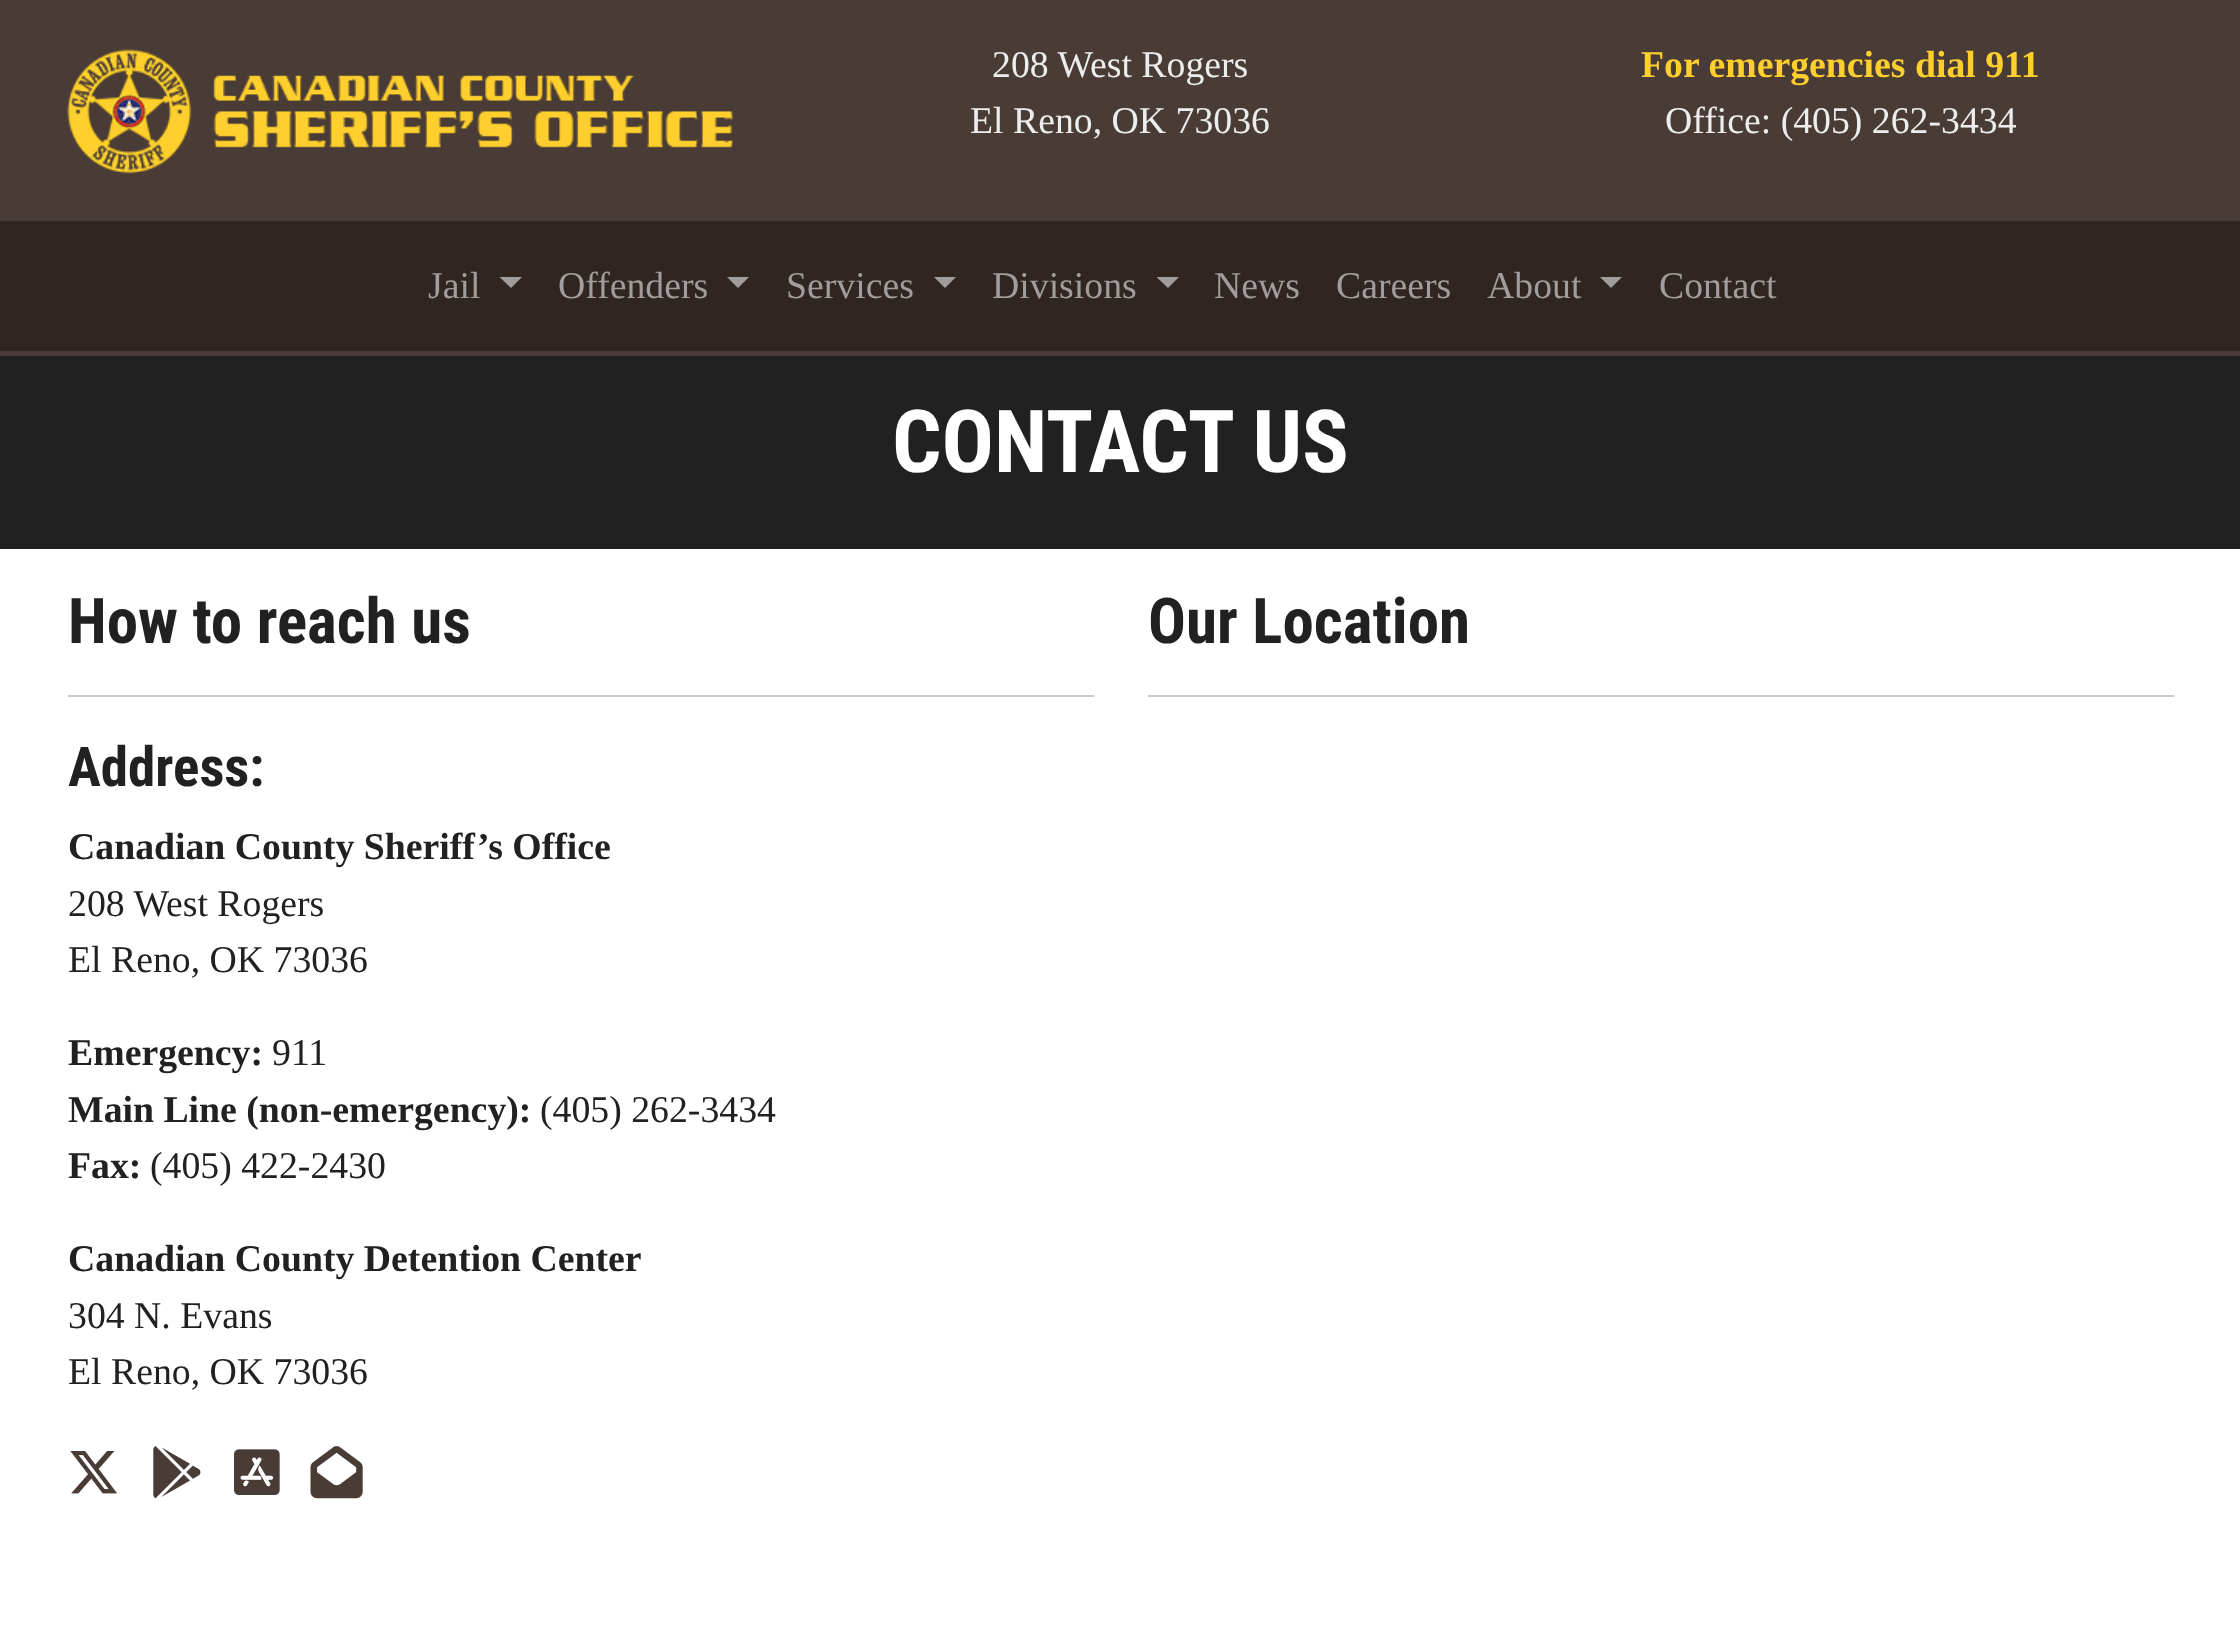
<svg xmlns="http://www.w3.org/2000/svg" width="2240" height="1630">
<rect width="100%" height="100%" fill="#fff"/>
<rect width="2240" height="221" fill="#493b35"/>
<image x="67" y="49" width="667" height="125" href="media/1.png"/>
<text x="992" y="77" style="font-family:Liberation Serif;font-size:37.75px;fill:#eeeded">208 West Rogers</text>
<text x="970" y="133" style="font-family:Liberation Serif;font-size:37.75px;fill:#eeeded">El Reno, OK 73036</text>
<text x="1641" y="77" style="font-family:Liberation Serif;font-size:37.75px;font-weight:bold;fill:#ffcf2d">For emergencies dial 911</text>
<text x="1665" y="133" style="font-family:Liberation Serif;font-size:37.75px;fill:#eeeded">Office: (405) 262-3434</text>
<rect y="221" width="2240" height="130" fill="#2f2622"/>
<rect y="351" width="2240" height="5" fill="#493b35"/>
<text x="428" y="298" style="font-family:Liberation Serif;font-size:37.75px;fill:#a19d9c">Jail</text>
<path d="M499.5 277h22.5l-11 11z" fill="#a19d9c"/>
<text x="558" y="298" style="font-family:Liberation Serif;font-size:37.75px;fill:#a19d9c">Offenders</text>
<path d="M727 277h22l-11 11z" fill="#a19d9c"/>
<text x="786" y="298" style="font-family:Liberation Serif;font-size:37.75px;fill:#a19d9c">Services</text>
<path d="M934 277h22l-11 11z" fill="#a19d9c"/>
<text x="992" y="298" style="font-family:Liberation Serif;font-size:37.75px;fill:#a19d9c">Divisions</text>
<path d="M1156.5 277h22.5l-11 11z" fill="#a19d9c"/>
<text x="1214" y="298" style="font-family:Liberation Serif;font-size:37.75px;fill:#a19d9c">News</text>
<text x="1336" y="298" style="font-family:Liberation Serif;font-size:37.75px;fill:#a19d9c">Careers</text>
<text x="1487" y="298" style="font-family:Liberation Serif;font-size:37.75px;fill:#a19d9c">About</text>
<path d="M1600 277h22l-11 11z" fill="#a19d9c"/>
<text x="1659" y="298" style="font-family:Liberation Serif;font-size:37.75px;fill:#a19d9c">Contact</text>
<rect y="356" width="2240" height="193" fill="#212121"/>
<text x="892" y="472" style="font-family:Roboto Condensed;font-size:87px;font-weight:bold;fill:#fff">CONTACT US</text>
<text x="68" y="643" style="font-family:Roboto Condensed;font-size:63px;font-weight:bold;fill:#212121">How to reach us</text>
<rect x="68" y="695" width="1026" height="2" fill="#c8c8c8"/>
<text x="68" y="786" style="font-family:Roboto Condensed;font-size:55px;font-weight:bold;fill:#212121">Address:</text>
<text x="68" y="859" style="font-family:Liberation Serif;font-size:37.75px;font-weight:bold;fill:#212121">Canadian County Sheriff’s Office</text>
<text x="68" y="916" style="font-family:Liberation Serif;font-size:37.75px;fill:#212121">208 West Rogers</text>
<text x="68" y="972" style="font-family:Liberation Serif;font-size:37.75px;fill:#212121">El Reno, OK 73036</text>
<text x="68" y="1065" style="font-family:Liberation Serif;font-size:37.75px;font-weight:bold;fill:#212121">Emergency:</text>
<text x="272" y="1065" style="font-family:Liberation Serif;font-size:37.75px;fill:#212121">911</text>
<text x="68" y="1122" style="font-family:Liberation Serif;font-size:37.75px;font-weight:bold;fill:#212121">Main Line (non-emergency):</text>
<text x="540" y="1122" style="font-family:Liberation Serif;font-size:37.75px;fill:#212121">(405) 262-3434</text>
<text x="68" y="1178" style="font-family:Liberation Serif;font-size:37.75px;font-weight:bold;fill:#212121">Fax:</text>
<text x="150" y="1178" style="font-family:Liberation Serif;font-size:37.75px;fill:#212121">(405) 422-2430</text>
<text x="68" y="1271" style="font-family:Liberation Serif;font-size:37.75px;font-weight:bold;fill:#212121">Canadian County Detention Center</text>
<text x="68" y="1328" style="font-family:Liberation Serif;font-size:37.75px;fill:#212121">304 N. Evans</text>
<text x="68" y="1384" style="font-family:Liberation Serif;font-size:37.75px;fill:#212121">El Reno, OK 73036</text>
<image x="70" y="1451" width="47" height="43" href="media/2.png"/>
<image x="153" y="1446" width="48" height="53" href="media/3.png"/>
<image x="234" y="1449" width="46" height="46" href="media/4.png"/>
<image x="310" y="1446" width="53" height="53" href="media/5.png"/>
<text x="1148" y="643" style="font-family:Roboto Condensed;font-size:63px;font-weight:bold;fill:#212121">Our Location</text>
<rect x="1148" y="695" width="1026" height="2" fill="#c8c8c8"/>
</svg>
